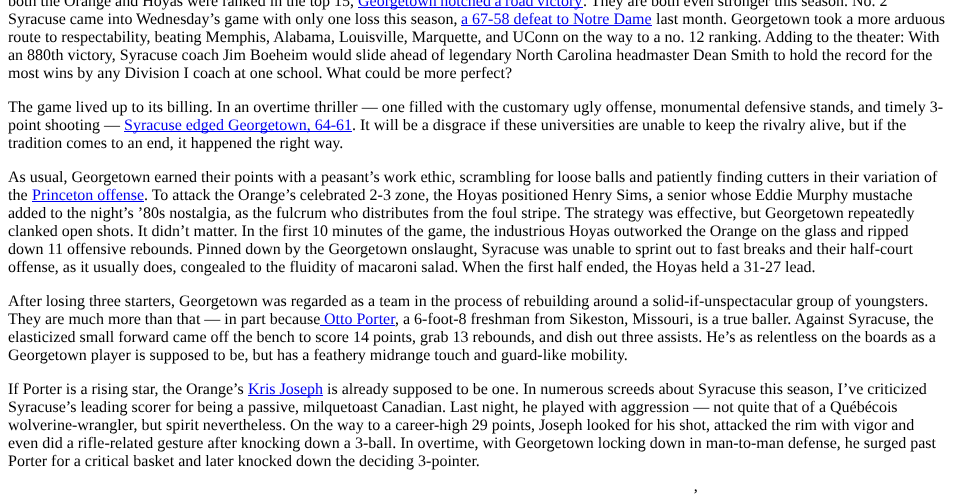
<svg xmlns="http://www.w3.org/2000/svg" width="955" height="496">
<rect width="100%" height="100%" fill="#fff"/>
<text x="8" y="6" style="font-family:Liberation Serif;font-size:16px;fill:#000">both the Orange and Hoyas were ranked in the top 15,</text>
<rect x="358" y="7" width="225" height="1" fill="#00e"/>
<text x="358" y="6" word-spacing="-0.5" style="font-family:Liberation Serif;font-size:16px;fill:#00e">Georgetown notched a road victory</text>
<text x="583" y="6" style="font-family:Liberation Serif;font-size:16px;fill:#000">. They are both even stronger this season. No. 2</text>
<text x="8" y="24" style="font-family:Liberation Serif;font-size:16px;fill:#000">Syracuse came into Wednesday’s game with only one loss this season,</text>
<text x="461" y="24" style="font-family:Liberation Serif;font-size:16px;fill:#00e">a 67-58 defeat to Notre Dame</text>
<rect x="461" y="25" width="191" height="1" fill="#00e"/>
<text x="656" y="24" style="font-family:Liberation Serif;font-size:16px;fill:#000">last month. Georgetown took a more arduous</text>
<text x="8" y="42" style="font-family:Liberation Serif;font-size:16px;fill:#000">route to respectability, beating Memphis, Alabama, Louisville, Marquette, and UConn on the way to a no. 12 ranking. Adding to the theater: With</text>
<text x="8" y="60" style="font-family:Liberation Serif;font-size:16px;fill:#000">an 880th victory, Syracuse coach Jim Boeheim would slide ahead of legendary North Carolina headmaster Dean Smith to hold the record for the</text>
<text x="8" y="78" style="font-family:Liberation Serif;font-size:16px;fill:#000">most wins by any Division I coach at one school. What could be more perfect?</text>
<text x="8" y="112" style="font-family:Liberation Serif;font-size:16px;fill:#000">The game lived up to its billing. In an overtime thriller — one filled with the customary ugly offense, monumental defensive stands, and timely 3-</text>
<text x="8" y="130" style="font-family:Liberation Serif;font-size:16px;fill:#000">point shooting —</text>
<rect x="124" y="131" width="228" height="1" fill="#00e"/>
<text x="124" y="130" style="font-family:Liberation Serif;font-size:16px;fill:#00e">Syracuse edged Georgetown, 64-61</text>
<text x="352" y="130" style="font-family:Liberation Serif;font-size:16px;fill:#000">. It will be a disgrace if these universities are unable to keep the rivalry alive, but if the</text>
<text x="8" y="148" style="font-family:Liberation Serif;font-size:16px;fill:#000">tradition comes to an end, it happened the right way.</text>
<text x="8" y="182" style="font-family:Liberation Serif;font-size:16px;fill:#000">As usual, Georgetown earned their points with a peasant’s work ethic, scrambling for loose balls and patiently finding cutters in their variation of</text>
<text x="8" y="200" style="font-family:Liberation Serif;font-size:16px;fill:#000">the</text>
<text x="32" y="200" style="font-family:Liberation Serif;font-size:16px;fill:#00e">Princeton offense</text>
<rect x="32" y="201" width="112" height="1" fill="#00e"/>
<text x="144" y="200" style="font-family:Liberation Serif;font-size:16px;fill:#000">. To attack the Orange’s celebrated 2-3 zone, the Hoyas positioned Henry Sims, a senior whose Eddie Murphy mustache</text>
<text x="8" y="218" style="font-family:Liberation Serif;font-size:16px;fill:#000">added to the night’s ’80s nostalgia, as the fulcrum who distributes from the foul stripe. The strategy was effective, but Georgetown repeatedly</text>
<text x="8" y="236" style="font-family:Liberation Serif;font-size:16px;fill:#000">clanked open shots. It didn’t matter. In the first 10 minutes of the game, the industrious Hoyas outworked the Orange on the glass and ripped</text>
<text x="8" y="254" style="font-family:Liberation Serif;font-size:16px;fill:#000">down 11 offensive rebounds. Pinned down by the Georgetown onslaught, Syracuse was unable to sprint out to fast breaks and their half-court</text>
<text x="8" y="272" style="font-family:Liberation Serif;font-size:16px;fill:#000">offense, as it usually does, congealed to the fluidity of macaroni salad. When the first half ended, the Hoyas held a 31-27 lead.</text>
<text x="8" y="306" style="font-family:Liberation Serif;font-size:16px;fill:#000">After losing three starters, Georgetown was regarded as a team in the process of rebuilding around a solid-if-unspectacular group of youngsters.</text>
<text x="8" y="324" style="font-family:Liberation Serif;font-size:16px;fill:#000">They are much more than that — in part because</text>
<text x="324" y="324" style="font-family:Liberation Serif;font-size:16px;fill:#00e">Otto Porter</text>
<rect x="320" y="325" width="75" height="1" fill="#00e"/>
<text x="395" y="324" style="font-family:Liberation Serif;font-size:16px;fill:#000">, a 6-foot-8 freshman from Sikeston, Missouri, is a true baller. Against Syracuse, the</text>
<text x="8" y="342" style="font-family:Liberation Serif;font-size:16px;fill:#000">elasticized small forward came off the bench to score 14 points, grab 13 rebounds, and dish out three assists. He’s as relentless on the boards as a</text>
<text x="8" y="360" style="font-family:Liberation Serif;font-size:16px;fill:#000">Georgetown player is supposed to be, but has a feathery midrange touch and guard-like mobility.</text>
<text x="8" y="394" style="font-family:Liberation Serif;font-size:16px;fill:#000">If Porter is a rising star, the Orange’s</text>
<rect x="248" y="395" width="75" height="1" fill="#00e"/>
<text x="248" y="394" style="font-family:Liberation Serif;font-size:16px;fill:#00e">Kris Joseph</text>
<text x="327" y="394" style="font-family:Liberation Serif;font-size:16px;fill:#000">is already supposed to be one. In numerous screeds about Syracuse this season, I’ve criticized</text>
<text x="8" y="412" style="font-family:Liberation Serif;font-size:16px;fill:#000">Syracuse’s leading scorer for being a passive, milquetoast Canadian. Last night, he played with aggression — not quite that of a Québécois</text>
<text x="8" y="430" style="font-family:Liberation Serif;font-size:16px;fill:#000">wolverine-wrangler, but spirit nevertheless. On the way to a career-high 29 points, Joseph looked for his shot, attacked the rim with vigor and</text>
<text x="8" y="448" style="font-family:Liberation Serif;font-size:16px;fill:#000">even did a rifle-related gesture after knocking down a 3-ball. In overtime, with Georgetown locking down in man-to-man defense, he surged past</text>
<text x="8" y="466" style="font-family:Liberation Serif;font-size:16px;fill:#000">Porter for a critical basket and later knocked down the deciding 3-pointer.</text>
<text x="693" y="500" style="font-family:Liberation Serif;font-size:16px;fill:#000">’</text>
</svg>
